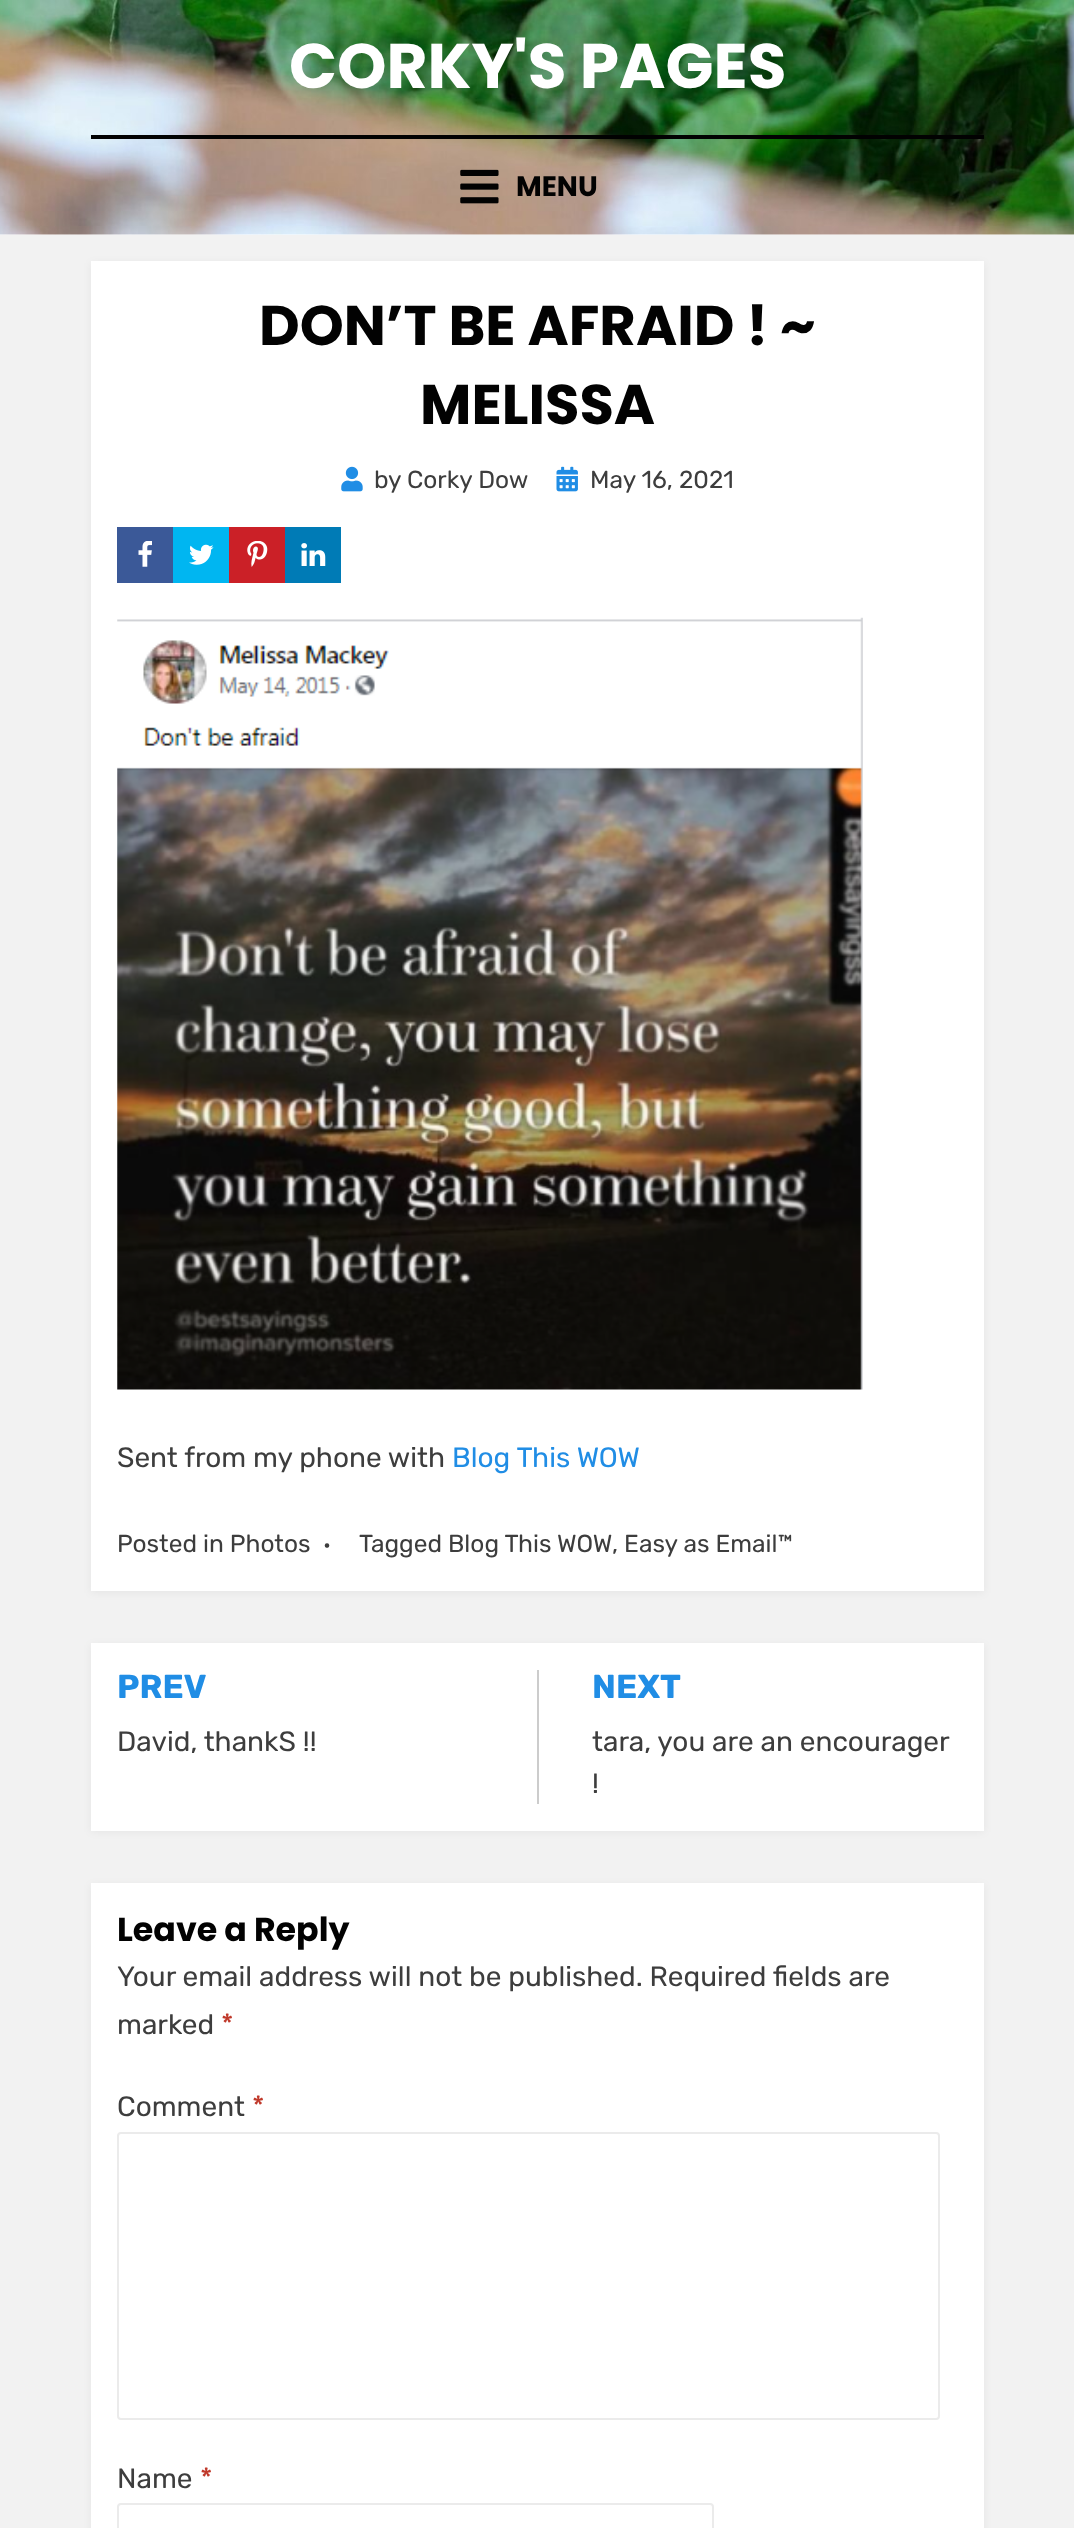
<svg xmlns="http://www.w3.org/2000/svg" width="1074" height="2528">
<rect width="100%" height="100%" fill="#f2f2f2"/>
<rect y="234" width="1074" height="1" fill="#fff"/>
<image x="0" y="0" width="1074" height="235" href="media/1.png"/>
<text x="289" y="88" style="font-family:Poppins;font-size:63px;font-weight:bold;fill:#fff">CORKY'S PAGES</text>
<rect x="91" y="135" width="893" height="4" fill="#020202"/>
<image x="460" y="169" width="39" height="35" href="media/2.png"/>
<text x="516" y="196" style="font-family:Poppins;font-size:28px;font-weight:bold;fill:#020202">MENU</text>
<rect x="91" y="263" width="893" height="1330" fill="#0000010d" filter="blur(4.5px)"/>
<rect x="91" y="261" width="893" height="1330" fill="#fff"/>
<text x="259" y="345" style="font-family:Poppins;font-size:56px;font-weight:bold;fill:#020202">DON’T BE AFRAID ! ~</text>
<text x="420" y="424" style="font-family:Poppins;font-size:56px;font-weight:bold;fill:#020202">MELISSA</text>
<image x="341" y="466" width="22" height="26" href="media/3.png"/>
<text x="374" y="488" style="font-family:Rubik;font-size:24.5px;fill:#3d3d3d">by Corky Dow</text>
<image x="556" y="466" width="22" height="26" href="media/4.png"/>
<text x="590" y="488" style="font-family:Rubik;font-size:24.5px;fill:#3d3d3d">May 16, 2021</text>
<rect x="117" y="527" width="56" height="56" fill="#3b5998"/>
<image x="138" y="541" width="14" height="26" href="media/5.png"/>
<rect x="173" y="527" width="56" height="56" fill="#00b6f1"/>
<image x="189" y="544" width="25" height="21" href="media/6.png"/>
<rect x="229" y="527" width="56" height="56" fill="#cb2027"/>
<image x="247" y="541" width="21" height="26" href="media/7.png"/>
<rect x="285" y="527" width="56" height="56" fill="#007bb6"/>
<image x="301" y="543" width="25" height="23" href="media/8.png"/>
<image x="117" y="617" width="746" height="773" href="media/9.png"/>
<text x="117" y="1467" style="font-family:Rubik;font-size:28px;fill:#3d3d3d">Sent from my phone with</text>
<text x="452" y="1467" style="font-family:Rubik;font-size:28px;fill:#208de5">Blog This WOW</text>
<text x="117" y="1552" style="font-family:Rubik;font-size:24.5px;fill:#3d3d3d">Posted in Photos</text>
<text x="323" y="1552" style="font-family:Rubik;font-size:21px;fill:#3d3d3d">•</text>
<text x="359" y="1552" style="font-family:Rubik;font-size:24.5px;fill:#3d3d3d">Tagged</text>
<text x="448" y="1552" style="font-family:Rubik;font-size:24.5px;fill:#3d3d3d">Blog This WOW</text>
<text x="612" y="1552" style="font-family:Rubik;font-size:24.5px;fill:#3d3d3d">, Easy as Email™</text>
<rect x="91" y="1645" width="893" height="187" fill="#0000010d" filter="blur(4.5px)"/>
<rect x="91" y="1643" width="893" height="188" fill="#fff"/>
<text x="117" y="1698" style="font-family:Rubik;font-size:33.25px;font-weight:bold;fill:#208de5">PREV</text>
<text x="117" y="1751" style="font-family:Rubik;font-size:28px;fill:#3d3d3d">David, thankS !!</text>
<rect x="537" y="1670" width="2" height="134" fill="#ccc"/>
<text x="592" y="1698" style="font-family:Rubik;font-size:33.25px;font-weight:bold;fill:#208de5">NEXT</text>
<text x="592" y="1751" style="font-family:Rubik;font-size:28px;fill:#3d3d3d">tara, you are an encourager</text>
<text x="592" y="1793" style="font-family:Rubik;font-size:28px;fill:#3d3d3d">!</text>
<rect x="91" y="1885" width="893" height="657" fill="#0000010d" filter="blur(4.5px)"/>
<rect x="91" y="1883" width="893" height="645" fill="#fff"/>
<text x="117" y="1941" style="font-family:Poppins;font-size:33.25px;font-weight:bold;fill:#020202">Leave a Reply</text>
<text x="117" y="1986" style="font-family:Rubik;font-size:28px;fill:#3d3d3d">Your email address will not be published. Required fields are</text>
<text x="117" y="2034" style="font-family:Rubik;font-size:28px;fill:#3d3d3d">marked</text>
<text x="221" y="2034" style="font-family:Rubik;font-size:28px;fill:#c0392b">*</text>
<text x="117" y="2116" style="font-family:Rubik;font-size:28px;fill:#3d3d3d">Comment</text>
<text x="252" y="2116" style="font-family:Rubik;font-size:28px;fill:#c0392b">*</text>
<rect x="118" y="2133" width="821" height="286" rx="3" fill="none" stroke="#ebebeb" stroke-width="2"/>
<text x="117" y="2488" style="font-family:Rubik;font-size:28px;fill:#3d3d3d">Name</text>
<text x="200" y="2488" style="font-family:Rubik;font-size:28px;fill:#c0392b">*</text>
<rect x="118" y="2504" width="595" height="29" rx="3" fill="none" stroke="#ebebeb" stroke-width="2"/>
</svg>
